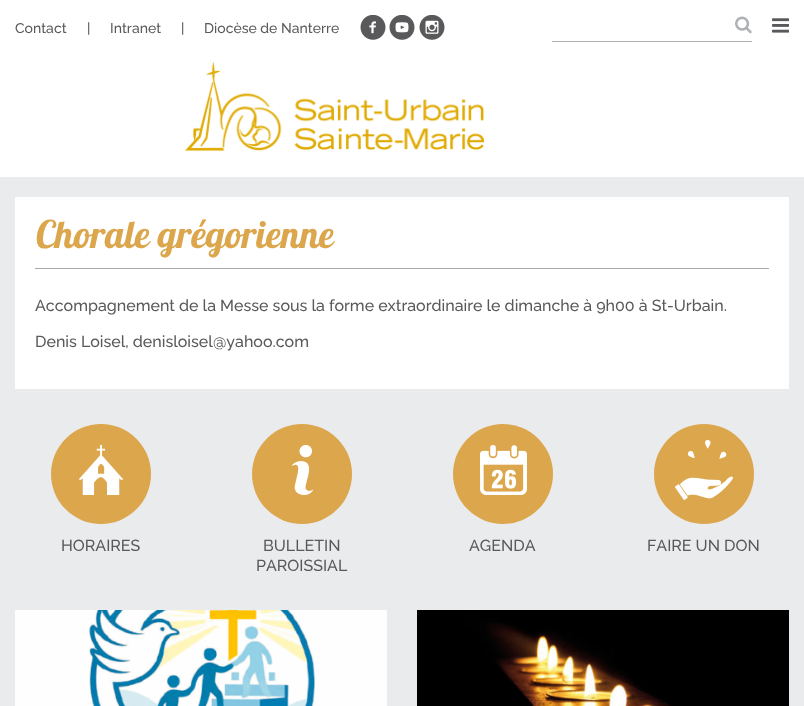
<svg xmlns="http://www.w3.org/2000/svg" width="804" height="706">
<style>*{font-kerning:none!important;font-variant-ligatures:none!important}</style>
<rect width="100%" height="100%" fill="#eaebec"/>
<rect width="804" height="177" fill="#fff"/>
<text x="15" y="33" style="font-family:Raleway;font-size:14px;font-weight:100;fill:#59595b">Contact</text>
<text x="87" y="33" style="font-family:Raleway;font-size:14px;font-weight:100;fill:#59595b">|</text>
<text x="110" y="33" style="font-family:Raleway;font-size:14px;font-weight:100;fill:#59595b">Intranet</text>
<text x="181" y="33" style="font-family:Raleway;font-size:14px;font-weight:100;fill:#59595b">|</text>
<text x="204" y="33" style="font-family:Raleway;font-size:14px;font-weight:100;fill:#59595b">Diocèse de Nanterre</text>
<image x="360" y="15" width="26" height="25" href="media/1.png"/>
<image x="389" y="15" width="26" height="25" href="media/2.png"/>
<image x="419" y="15" width="26" height="25" href="media/3.png"/>
<image x="735" y="16" width="17" height="18" href="media/4.png"/>
<rect x="552" y="41" width="200" height="1" fill="#afb1b4"/>
<image x="772" y="18" width="17" height="15" href="media/5.png"/>
<image x="185" y="62" width="299" height="90" href="media/6.png"/>
<rect x="15" y="197" width="774" height="192" fill="#fff"/>
<rect x="35" y="268" width="734" height="1" fill="#aaa"/>
<text x="35" y="248" style="font-family:Lobster Two;font-size:38px;font-weight:bold;font-style:italic;fill:#dca64c">Chorale grégorienne</text>
<text x="35" y="311" style="font-family:Raleway;font-size:16px;font-weight:100;fill:#59595b">Accompagnement de la Messe sous la forme extraordinaire le dimanche à 9h00 à St-Urbain.</text>
<text x="35" y="347" style="font-family:Raleway;font-size:16px;font-weight:100;fill:#59595b">Denis Loisel, denisloisel@yahoo.com</text>
<circle cx="101" cy="474" r="50" fill="#dca64c"/>
<image x="79" y="445" width="44" height="50" href="media/7.png"/>
<text x="61" y="551" style="font-family:Raleway;font-size:16px;font-weight:100;fill:#59595b">HORAIRES</text>
<circle cx="302" cy="474" r="50" fill="#dca64c"/>
<image x="292" y="445" width="21" height="50" href="media/8.png"/>
<text x="263" y="551" style="font-family:Raleway;font-size:16px;font-weight:100;fill:#59595b">BULLETIN</text>
<text x="256" y="571" style="font-family:Raleway;font-size:16px;font-weight:100;fill:#59595b">PAROISSIAL</text>
<circle cx="503" cy="474" r="50" fill="#dca64c"/>
<image x="480" y="445" width="47" height="50" href="media/9.png"/>
<text x="469" y="551" style="font-family:Raleway;font-size:16px;font-weight:100;fill:#59595b">AGENDA</text>
<circle cx="704" cy="474" r="50" fill="#dca64c"/>
<image x="675" y="440" width="58" height="60" href="media/10.png"/>
<text x="647" y="551" style="font-family:Raleway;font-size:16px;font-weight:100;fill:#59595b">FAIRE UN DON</text>
<image x="15" y="610" width="372" height="96" href="media/11.png"/>
<image x="417" y="610" width="372" height="96" href="media/12.png"/>
</svg>
